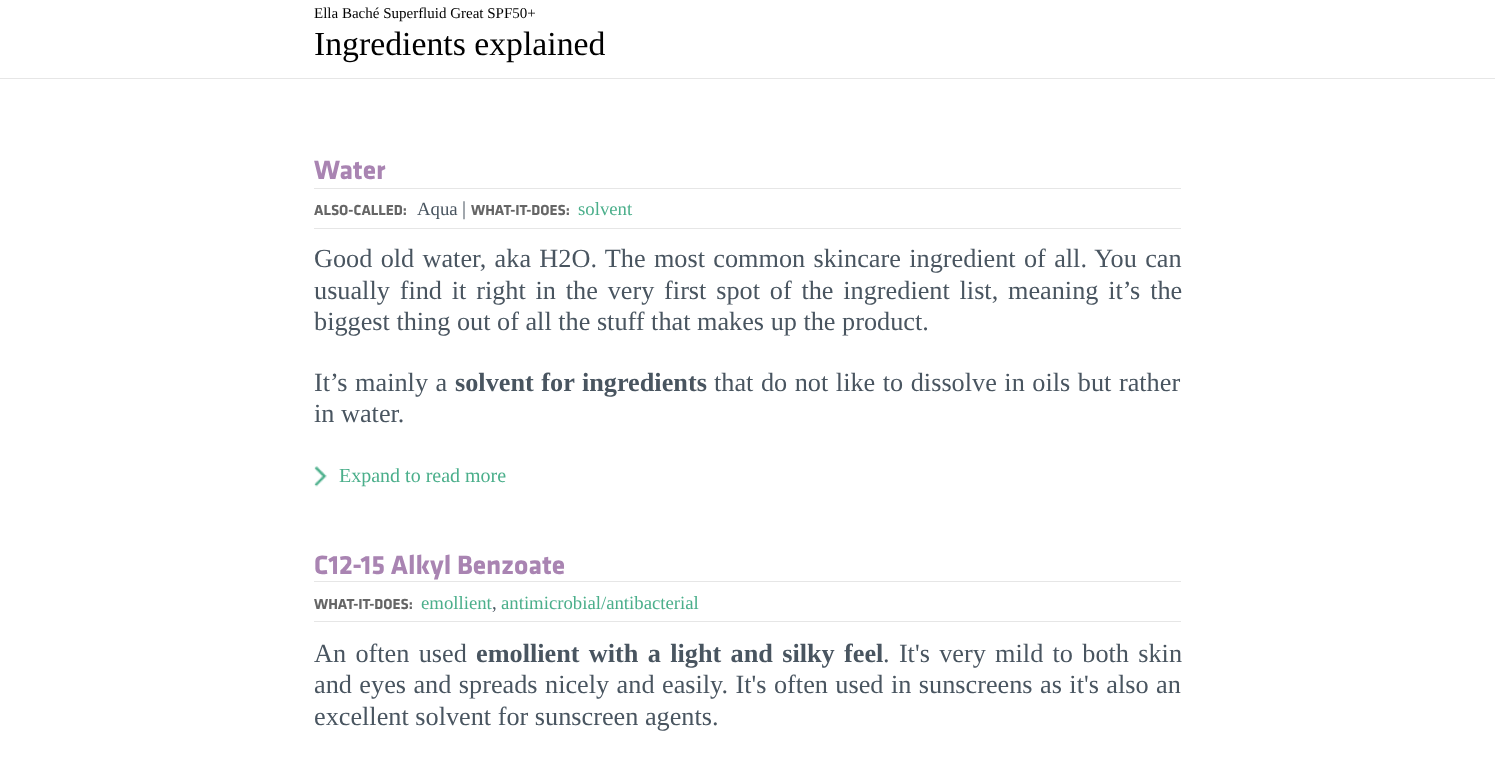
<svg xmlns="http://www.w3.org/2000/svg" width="1495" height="768">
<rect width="100%" height="100%" fill="#fff"/>
<rect y="78" width="1495" height="1" fill="#e6e6e6"/>
<text x="314" y="18" style="font-family:Liberation Serif;font-size:15px;fill:#000">Ella Baché Superfluid Great SPF50+</text>
<text x="314" y="55" style="font-family:Liberation Serif;font-size:33.75px;fill:#000">Ingredients explained</text>
<text x="314" y="179" style="font-family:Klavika;font-size:27.5px;font-weight:bold;fill:#a984b2">Water</text>
<rect x="314" y="188" width="867" height="1" fill="#e6e6e6"/>
<rect x="314" y="228" width="867" height="1" fill="#e6e6e6"/>
<text x="314" y="215" style="font-family:Klavika;font-size:15px;font-weight:bold;fill:#666">ALSO-CALLED:</text>
<text x="417" y="215" style="font-family:Liberation Serif;font-size:18.75px;fill:#495560">Aqua</text>
<text x="462" y="215" style="font-family:Liberation Serif;font-size:20px;fill:#495560">|</text>
<text x="471" y="215" style="font-family:Klavika;font-size:15px;font-weight:bold;fill:#666">WHAT-IT-DOES:</text>
<text x="578" y="215" style="font-family:Liberation Serif;font-size:18.75px;fill:#4baf8b">solvent</text>
<text x="314" y="267" word-spacing="1.75" style="font-family:Liberation Serif;font-size:26.25px;fill:#495560">Good old water, aka H2O. The most common skincare ingredient of all. You can</text>
<text x="314" y="299" word-spacing="3.25" style="font-family:Liberation Serif;font-size:26.25px;fill:#495560">usually find it right in the very first spot of the ingredient list, meaning it’s the</text>
<text x="314" y="330" style="font-family:Liberation Serif;font-size:26.25px;fill:#495560">biggest thing out of all the stuff that makes up the product.</text>
<text x="314" y="391" word-spacing="1" style="font-family:Liberation Serif;font-size:26.25px;fill:#495560">It’s mainly a</text>
<text x="455" y="391" word-spacing="1" style="font-family:Liberation Serif;font-size:26.25px;font-weight:bold;fill:#495560">solvent for ingredients</text>
<text x="714" y="391" word-spacing="1" style="font-family:Liberation Serif;font-size:26.25px;fill:#495560">that do not like to dissolve in oils but rather</text>
<text x="314" y="422" style="font-family:Liberation Serif;font-size:26.25px;fill:#495560">in water.</text>
<image x="314" y="466" width="13" height="21" href="media/1.png"/>
<text x="339" y="482" style="font-family:Liberation Serif;font-size:20px;fill:#4baf8b">Expand to read more</text>
<text x="314" y="574" style="font-family:Klavika;font-size:27.5px;font-weight:bold;fill:#a984b2">C12-15 Alkyl Benzoate</text>
<rect x="314" y="581" width="867" height="1" fill="#e6e6e6"/>
<rect x="314" y="621" width="867" height="1" fill="#e6e6e6"/>
<text x="314" y="609" style="font-family:Klavika;font-size:15px;font-weight:bold;fill:#666">WHAT-IT-DOES:</text>
<text x="421" y="609" style="font-family:Liberation Serif;font-size:18.75px;fill:#4baf8b">emollient</text>
<text x="492" y="609" style="font-family:Liberation Serif;font-size:18.75px;fill:#495560">,</text>
<text x="501" y="609" style="font-family:Liberation Serif;font-size:18.75px;fill:#4baf8b">antimicrobial/antibacterial</text>
<text x="314" y="662" word-spacing="2.75" style="font-family:Liberation Serif;font-size:26.25px;fill:#495560">An often used</text>
<text x="476" y="662" word-spacing="2.75" style="font-family:Liberation Serif;font-size:26.25px;font-weight:bold;fill:#495560">emollient with a light and silky feel</text>
<text x="883" y="662" word-spacing="2.75" style="font-family:Liberation Serif;font-size:26.25px;fill:#495560">. It's very mild to both skin</text>
<text x="314" y="693" word-spacing="0.9" style="font-family:Liberation Serif;font-size:26.25px;fill:#495560">and eyes and spreads nicely and easily. It's often used in sunscreens as it's also an</text>
<text x="314" y="725" style="font-family:Liberation Serif;font-size:26.25px;fill:#495560">excellent solvent for sunscreen agents.</text>
</svg>
